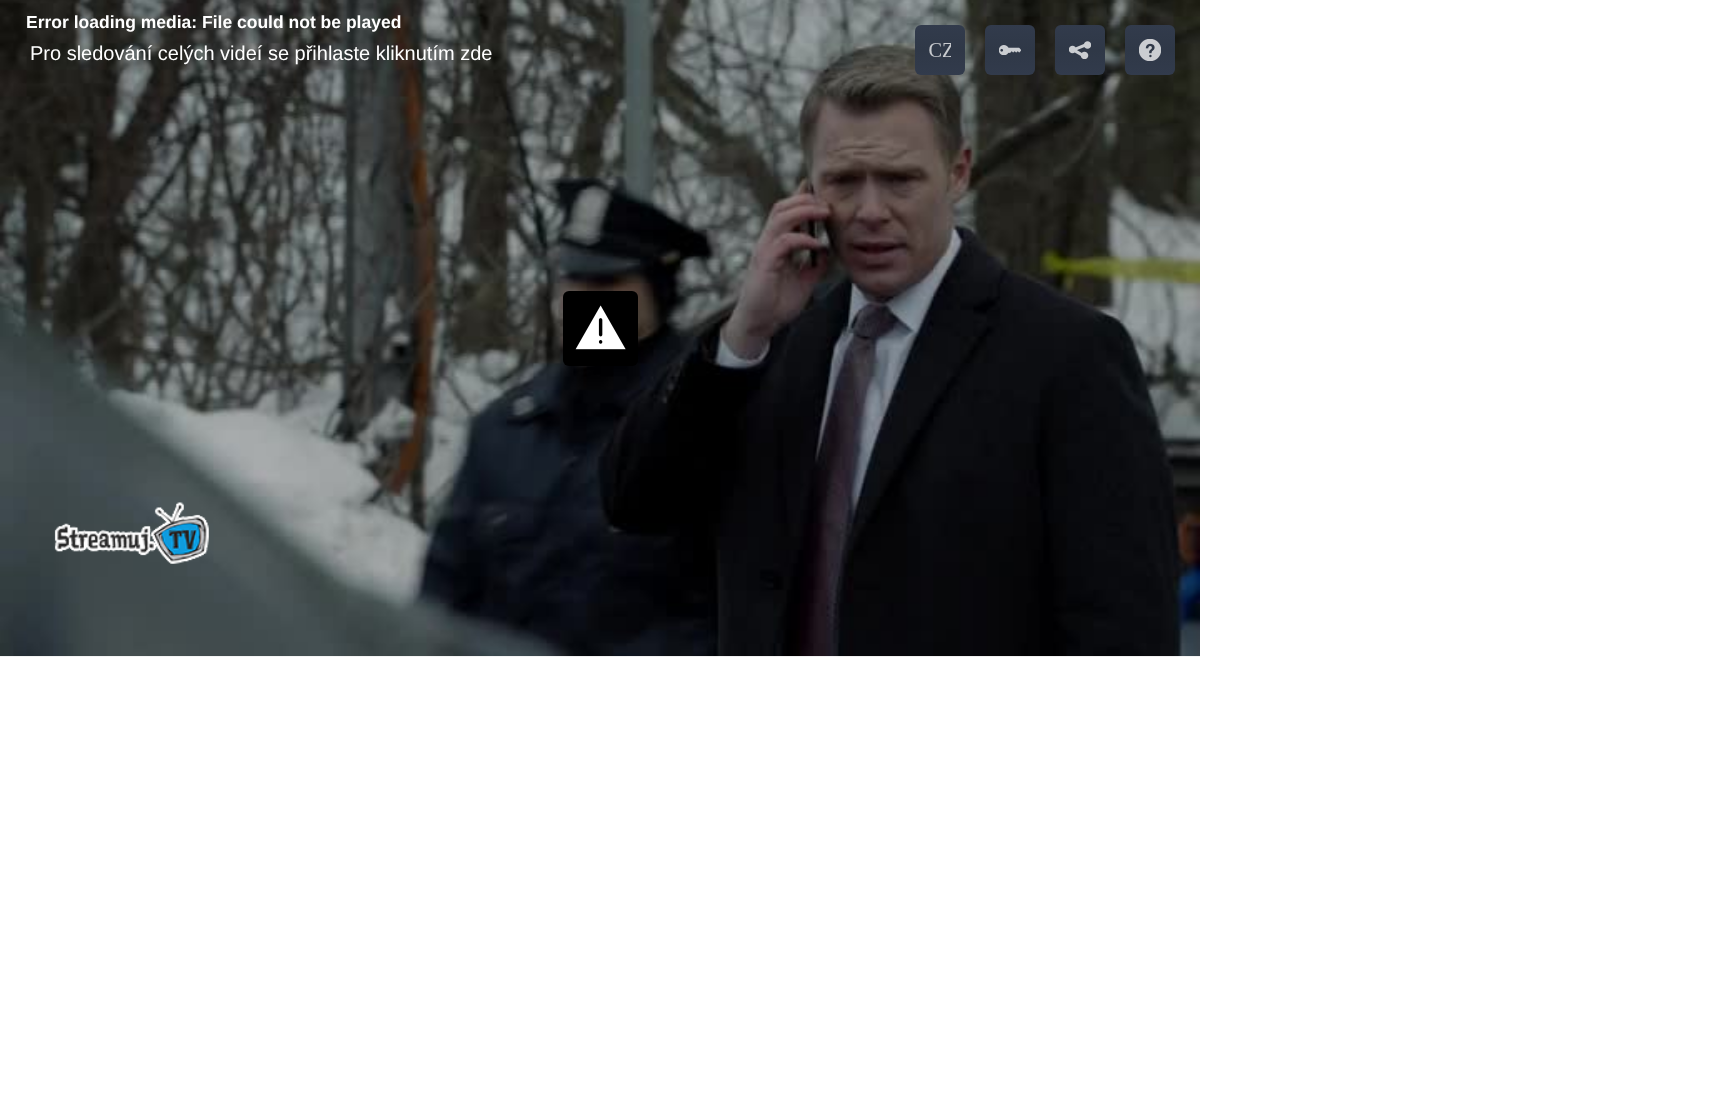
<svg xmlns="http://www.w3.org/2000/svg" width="1714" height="1114">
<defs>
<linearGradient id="g1" gradientUnits="userSpaceOnUse" x1="940" y1="25" x2="940" y2="75"><stop offset="0" stop-color="#323b4c"/><stop offset="0.5" stop-color="#2f3847"/><stop offset="1" stop-color="#323b4c"/></linearGradient>
<linearGradient id="g2" gradientUnits="userSpaceOnUse" x1="1010" y1="25" x2="1010" y2="75"><stop offset="0" stop-color="#323b4c"/><stop offset="0.5" stop-color="#2f3847"/><stop offset="1" stop-color="#323b4c"/></linearGradient>
<linearGradient id="g3" gradientUnits="userSpaceOnUse" x1="1080" y1="25" x2="1080" y2="75"><stop offset="0" stop-color="#323b4c"/><stop offset="0.5" stop-color="#2f3847"/><stop offset="1" stop-color="#323b4c"/></linearGradient>
<linearGradient id="g4" gradientUnits="userSpaceOnUse" x1="1150" y1="25" x2="1150" y2="75"><stop offset="0" stop-color="#323b4c"/><stop offset="0.5" stop-color="#2f3847"/><stop offset="1" stop-color="#323b4c"/></linearGradient>
</defs>
<rect width="100%" height="100%" fill="#fff"/>
<image x="0" y="0" width="1200" height="657" href="media/1.png"/>
<text x="26" y="28" style="font-family:Liberation Sans;font-size:17.5px;font-weight:bold;fill:#fff">Error loading media: File could not be played</text>
<rect x="915" y="25" width="50" height="50" rx="6" fill="url(#g1)"/>
<image x="929" y="43" width="22" height="14" href="media/2.png"/>
<rect x="985" y="25" width="50" height="50" rx="6" fill="url(#g2)"/>
<image x="999" y="45" width="22" height="10" href="media/3.png"/>
<rect x="1055" y="25" width="50" height="50" rx="6" fill="url(#g3)"/>
<image x="1069" y="41" width="22" height="18" href="media/4.png"/>
<rect x="1125" y="25" width="50" height="50" rx="6" fill="url(#g4)"/>
<image x="1139" y="39" width="22" height="22" href="media/5.png"/>
<image x="54" y="502" width="155" height="62" href="media/6.png"/>
<rect x="563" y="291" width="75" height="75" rx="6" fill="#000"/>
<image x="575" y="305" width="51" height="45" href="media/7.png"/>
<text x="30" y="60" style="font-family:Liberation Sans;font-size:20px;fill:#fff">Pro sledování celých videí se přihlaste kliknutím zde</text>
</svg>
